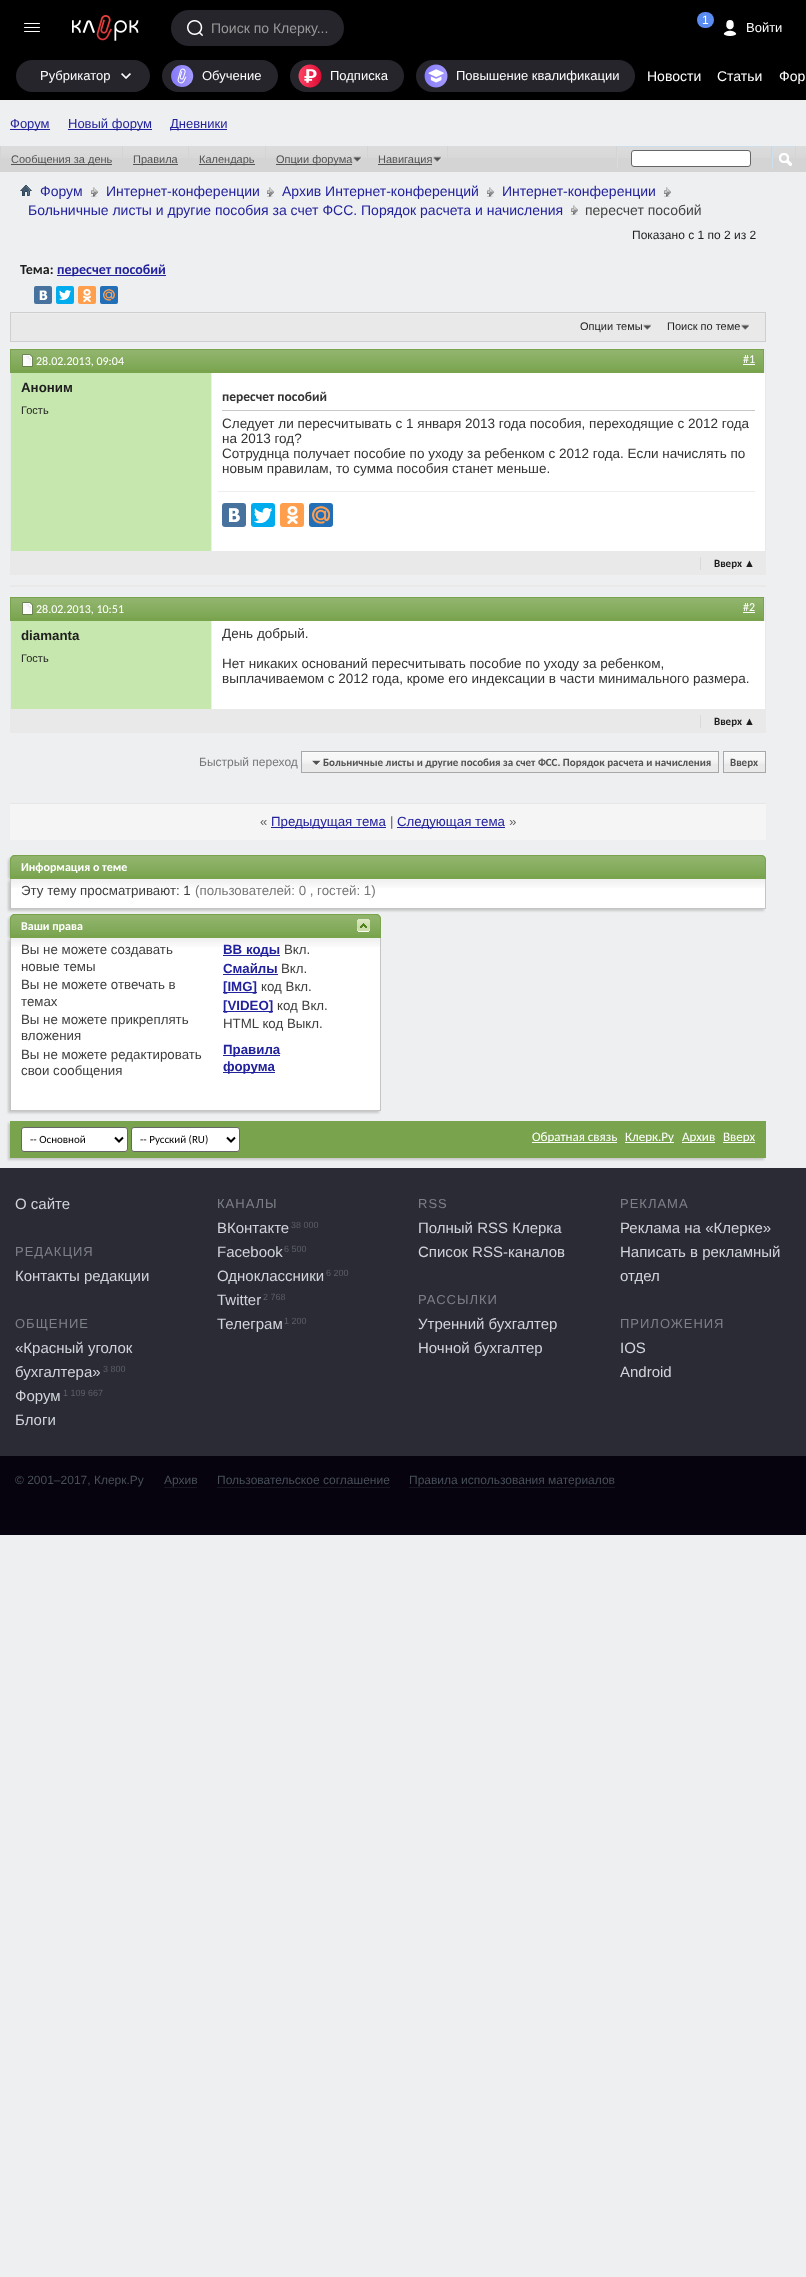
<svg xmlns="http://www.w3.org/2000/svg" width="806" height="2277">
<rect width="100%" height="100%" fill="#eeeff1"/>
<rect width="806" height="100" fill="#000"/>
<rect x="24" y="23" width="16" height="1" rx="0.5" fill="#fff"/>
<rect x="24" y="27" width="16" height="1" rx="0.5" fill="#fff"/>
<rect x="24" y="31" width="16" height="1" rx="0.5" fill="#fff"/>
<image x="72" y="15" width="67" height="26" href="media/1.png"/>
<rect x="171" y="10" width="173" height="36" rx="18" fill="#26252c"/>
<image x="187" y="20" width="16" height="16" href="media/2.png"/>
<text x="211" y="33" style="font-family:Liberation Sans;font-size:14px;fill:#999">Поиск по Клерку...</text>
<rect x="697" y="12" width="17" height="16" rx="8" fill="#5a8cf1"/>
<text x="702" y="24" style="font-family:Liberation Sans;font-size:12px;fill:#fff">1</text>
<image x="723" y="20" width="14" height="16" href="media/3.png"/>
<text x="746" y="32" style="font-family:Liberation Sans;font-size:13px;fill:#fff">Войти</text>
<rect x="16" y="60" width="134" height="32" rx="16" fill="#26252c"/>
<text x="40" y="80" style="font-family:Liberation Sans;font-size:13px;fill:#fff">Рубрикатор</text>
<image x="121" y="73" width="10" height="6" href="media/4.png"/>
<rect x="162" y="60" width="116" height="32" rx="16" fill="#26252c"/>
<image x="171" y="65" width="23" height="22" href="media/5.png"/>
<text x="202" y="80" style="font-family:Liberation Sans;font-size:13px;fill:#fff">Обучение</text>
<rect x="290" y="60" width="114" height="32" rx="16" fill="#26252c"/>
<image x="298" y="64" width="24" height="24" href="media/6.png"/>
<text x="330" y="80" style="font-family:Liberation Sans;font-size:13px;fill:#fff">Подписка</text>
<rect x="416" y="60" width="219" height="32" rx="16" fill="#26252c"/>
<image x="424" y="64" width="24" height="24" href="media/7.png"/>
<text x="456" y="80" style="font-family:Liberation Sans;font-size:13px;fill:#fff">Повышение квалификации</text>
<text x="647" y="81" style="font-family:Liberation Sans;font-size:14px;fill:#fff">Новости</text>
<text x="717" y="81" style="font-family:Liberation Sans;font-size:14px;fill:#fff">Статьи</text>
<text x="779" y="81" style="font-family:Liberation Sans;font-size:14px;fill:#fff">Фор</text>
<rect x="10" y="129" width="40" height="1" fill="#22229c"/>
<text x="10" y="128" style="font-family:Liberation Sans;font-size:13px;fill:#22229c">Форум</text>
<rect x="68" y="129" width="84" height="1" fill="#22229c"/>
<text x="68" y="128" style="font-family:Liberation Sans;font-size:13px;fill:#22229c">Новый форум</text>
<rect x="170" y="129" width="57" height="1" fill="#22229c"/>
<text x="170" y="128" style="font-family:Liberation Sans;font-size:13px;fill:#22229c">Дневники</text>
<rect y="146" width="806" height="26" fill="#d4d4d4"/>
<image x="1" y="146" width="805" height="12" href="media/8.png"/>
<rect x="122" y="146" width="1" height="12" fill="#d4d4d4"/>
<rect x="11" y="164" width="101" height="1" fill="#535353"/>
<text x="11" y="163" style="font-family:Liberation Sans;font-size:11px;fill:#535353">Сообщения за день</text>
<rect x="188" y="146" width="1" height="12" fill="#d4d4d4"/>
<rect x="133" y="164" width="45" height="1" fill="#535353"/>
<text x="133" y="163" style="font-family:Liberation Sans;font-size:11px;fill:#535353">Правила</text>
<rect x="265" y="146" width="1" height="12" fill="#d4d4d4"/>
<rect x="199" y="164" width="56" height="1" fill="#535353"/>
<text x="199" y="163" style="font-family:Liberation Sans;font-size:11px;fill:#535353">Календарь</text>
<rect x="367" y="146" width="1" height="12" fill="#d4d4d4"/>
<rect x="276" y="164" width="76" height="1" fill="#535353"/>
<text x="276" y="163" style="font-family:Liberation Sans;font-size:11px;fill:#535353">Опции форума</text>
<image x="353" y="156" width="9" height="7" href="media/9.png"/>
<rect x="447" y="146" width="1" height="12" fill="#d4d4d4"/>
<rect x="378" y="164" width="54" height="1" fill="#535353"/>
<text x="378" y="163" style="font-family:Liberation Sans;font-size:11px;fill:#535353">Навигация</text>
<image x="433" y="156" width="9" height="7" href="media/9.png"/>
<rect x="616" y="146" width="1" height="12" fill="#d4d4d4"/>
<rect x="617" y="146" width="147" height="1" fill="#cedfeb"/>
<rect x="617" y="146" width="1" height="22" fill="#cedfeb"/>
<rect x="631.5" y="150.5" width="119" height="16" rx="2.5" fill="#fff" stroke="#666"/>
<rect x="795" y="146" width="1" height="12" fill="#d4d4d4"/>
<rect x="771" y="146" width="1" height="12" fill="#d4d4d4"/>
<rect x="772" y="146" width="23" height="1" fill="#cedfeb"/>
<rect x="772" y="146" width="1" height="23" fill="#cedfeb"/>
<image x="779" y="153" width="13" height="14" href="media/10.png"/>
<image x="20" y="185" width="12" height="11" href="media/11.png"/>
<image x="91" y="187" width="7" height="10" href="media/12.png"/>
<text x="40" y="196" style="font-family:Liberation Sans;font-size:14px;fill:#22229c">Форум</text>
<image x="267" y="187" width="7" height="10" href="media/12.png"/>
<text x="106" y="196" style="font-family:Liberation Sans;font-size:14px;fill:#22229c">Интернет-конференции</text>
<image x="487" y="187" width="7" height="10" href="media/12.png"/>
<text x="282" y="196" style="font-family:Liberation Sans;font-size:14px;fill:#22229c">Архив Интернет-конференций</text>
<image x="664" y="187" width="7" height="10" href="media/12.png"/>
<text x="502" y="196" style="font-family:Liberation Sans;font-size:14px;fill:#22229c">Интернет-конференции</text>
<image x="571" y="205" width="7" height="10" href="media/12.png"/>
<text x="28" y="215" style="font-family:Liberation Sans;font-size:14px;fill:#22229c">Больничные листы и другие пособия за счет ФСС. Порядок расчета и начисления</text>
<text x="585" y="215" style="font-family:Liberation Sans;font-size:14px;fill:#444">пересчет пособий</text>
<text x="632" y="239" style="font-family:Liberation Sans;font-size:12px;fill:#1e1e1e">Показано с 1 по 2 из 2</text>
<text x="20" y="274" style="font-family:Carlito;font-size:14px;font-weight:bold;fill:#1e1e1e">Тема:</text>
<rect x="57" y="275" width="109" height="1" fill="#22229c"/>
<text x="57" y="274" style="font-family:Carlito;font-size:14px;font-weight:bold;fill:#22229c">пересчет пособий</text>
<rect x="34" y="286" width="18" height="18" rx="2" fill="#48729e"/>
<image x="39" y="290" width="9" height="10" href="media/13.png"/>
<rect x="56" y="286" width="18" height="18" rx="2" fill="#00aced"/>
<image x="59" y="290" width="12" height="10" href="media/14.png"/>
<rect x="78" y="286" width="18" height="18" rx="2" fill="#ff9f4d"/>
<image x="83" y="289" width="8" height="13" href="media/15.png"/>
<rect x="100" y="286" width="18" height="18" rx="2" fill="#226eb7"/>
<image x="103" y="289" width="12" height="12" href="media/16.png"/>
<rect x="11" y="314" width="754" height="27" fill="#e9e9e9"/>
<rect x="10" y="313" width="756" height="1" fill="#ededed"/>
<rect x="10.5" y="312.5" width="755" height="29" fill="none" stroke="#cecece"/>
<image x="643" y="324" width="9" height="7" href="media/17.png"/>
<text x="580" y="330" style="font-family:Liberation Sans;font-size:11px;fill:#1e1e1e">Опции темы</text>
<image x="741" y="324" width="9" height="7" href="media/17.png"/>
<text x="667" y="330" style="font-family:Liberation Sans;font-size:11px;fill:#1e1e1e">Поиск по теме</text>
<rect x="10.5" y="349.5" width="755" height="225" fill="none" stroke="#e9e9e9"/>
<rect x="11" y="350" width="752" height="22" fill="#79a44d"/>
<image x="11" y="350" width="752" height="20" href="media/18.png"/>
<rect x="10.5" y="349.5" width="753" height="23" fill="none" stroke="#79a44d"/>
<image x="22" y="354" width="11" height="13" href="media/19.png"/>
<text x="36" y="365" style="font-family:Carlito;font-size:12px;fill:#fff">28.02.2013, 09:04</text>
<text x="743" y="363" style="font-family:Carlito;font-size:12px;fill:#fff">#1</text>
<rect x="743" y="364" width="12" height="1" fill="#fff"/>
<rect x="11" y="373" width="200" height="178" fill="#c6e7ad"/>
<text x="21" y="392" style="font-family:Liberation Sans;font-size:13.3px;font-weight:bold;fill:#1e1e1e">Аноним</text>
<text x="21" y="414" style="font-family:Liberation Sans;font-size:11px;fill:#1e1e1e">Гость</text>
<rect x="212" y="373" width="553" height="178" fill="#fff"/>
<rect x="222" y="410" width="533" height="1" fill="#c8c8c8"/>
<text x="222" y="401" style="font-family:Carlito;font-size:13.5px;font-weight:bold;fill:#333">пересчет пособий</text>
<text x="222" y="428" style="font-family:Liberation Sans;font-size:13.5px;fill:#333">Следует ли пересчитывать с 1 января 2013 года пособия, переходящие с 2012 года</text>
<text x="222" y="443" style="font-family:Liberation Sans;font-size:13.5px;fill:#333">на 2013 год?</text>
<text x="222" y="458" style="font-family:Liberation Sans;font-size:13.5px;fill:#333">Сотруднца получает пособие по уходу за ребенком с 2012 года. Если начислять по</text>
<text x="222" y="473" style="font-family:Liberation Sans;font-size:13.5px;fill:#333">новым правилам, то сумма пособия станет меньше.</text>
<rect x="218" y="491" width="537" height="1" fill="#eee"/>
<rect x="222" y="503" width="24" height="24" rx="3" fill="#48729e"/>
<image x="229" y="508" width="11" height="14" href="media/20.png"/>
<rect x="251" y="503" width="24" height="24" rx="3" fill="#00aced"/>
<image x="254" y="508" width="18" height="15" href="media/21.png"/>
<rect x="280" y="503" width="24" height="24" rx="3" fill="#ff9f4d"/>
<image x="287" y="506" width="11" height="18" href="media/22.png"/>
<rect x="309" y="503" width="24" height="24" rx="3" fill="#226eb7"/>
<image x="312" y="506" width="18" height="18" href="media/23.png"/>
<rect x="11" y="551" width="754" height="23" fill="#e9e9e9"/>
<rect x="700" y="557" width="1" height="13" fill="#dadada"/>
<text x="714" y="567" style="font-family:Carlito;font-size:11px;font-weight:bold;fill:#1e1e1e">Вверх</text>
<text x="744" y="567" style="font-family:Liberation Sans;font-size:11px;font-weight:bold;fill:#1e1e1e">▲</text>
<rect x="10" y="585" width="756" height="2" fill="#e9e9e9"/>
<rect x="10.5" y="597.5" width="755" height="135" fill="none" stroke="#e9e9e9"/>
<rect x="11" y="598" width="752" height="22" fill="#79a44d"/>
<image x="11" y="598" width="752" height="20" href="media/18.png"/>
<rect x="10.5" y="597.5" width="753" height="23" fill="none" stroke="#79a44d"/>
<image x="22" y="602" width="11" height="13" href="media/19.png"/>
<text x="36" y="613" style="font-family:Carlito;font-size:12px;fill:#fff">28.02.2013, 10:51</text>
<text x="743" y="611" style="font-family:Carlito;font-size:12px;fill:#fff">#2</text>
<rect x="743" y="612" width="12" height="1" fill="#fff"/>
<rect x="11" y="621" width="200" height="88" fill="#c6e7ad"/>
<text x="21" y="640" style="font-family:Liberation Sans;font-size:13.3px;font-weight:bold;fill:#1e1e1e">diamanta</text>
<text x="21" y="662" style="font-family:Liberation Sans;font-size:11px;fill:#1e1e1e">Гость</text>
<rect x="212" y="621" width="553" height="88" fill="#fff"/>
<text x="222" y="638" style="font-family:Liberation Sans;font-size:13.5px;fill:#333">День добрый.</text>
<text x="222" y="668" style="font-family:Liberation Sans;font-size:13.5px;fill:#333">Нет никаких оснований пересчитывать пособие по уходу за ребенком,</text>
<text x="222" y="683" style="font-family:Liberation Sans;font-size:13.5px;fill:#333">выплачиваемом с 2012 года, кроме его индексации в части минимального размера.</text>
<rect x="11" y="709" width="754" height="23" fill="#e9e9e9"/>
<rect x="700" y="715" width="1" height="13" fill="#dadada"/>
<text x="714" y="725" style="font-family:Carlito;font-size:11px;font-weight:bold;fill:#1e1e1e">Вверх</text>
<text x="744" y="725" style="font-family:Liberation Sans;font-size:11px;font-weight:bold;fill:#1e1e1e">▲</text>
<text x="199" y="766" style="font-family:Liberation Sans;font-size:12px;fill:#777">Быстрый переход</text>
<rect x="302" y="752" width="416" height="20" fill="#e9e9e9"/>
<image x="302" y="752" width="416" height="12" href="media/24.png"/>
<rect x="724" y="752" width="41" height="20" fill="#e9e9e9"/>
<image x="724" y="752" width="41" height="12" href="media/25.png"/>
<rect x="301.5" y="751.5" width="417" height="21" fill="none" stroke="#a8a8a8"/>
<image x="312" y="760" width="9" height="6" href="media/26.png"/>
<text x="323" y="766" style="font-family:Carlito;font-size:11px;font-weight:bold;fill:#535353">Больничные листы и другие пособия за счет ФСС. Порядок расчета и начисления</text>
<rect x="723.5" y="751.5" width="42" height="21" fill="none" stroke="#a8a8a8"/>
<text x="730" y="766" style="font-family:Carlito;font-size:11px;font-weight:bold;fill:#535353">Вверх</text>
<rect x="10" y="804" width="756" height="36" fill="#f5f5f5"/>
<rect x="10" y="803" width="756" height="1" fill="#e7e7e7"/>
<text x="260" y="826" style="font-family:Liberation Sans;font-size:13.3px;fill:#5d5d5d">«</text>
<rect x="271" y="827" width="115" height="1" fill="#22229c"/>
<text x="271" y="826" style="font-family:Liberation Sans;font-size:13.3px;fill:#22229c">Предыдущая тема</text>
<text x="390" y="826" style="font-family:Liberation Sans;font-size:13.3px;fill:#5d5d5d">|</text>
<rect x="397" y="827" width="108" height="1" fill="#22229c"/>
<text x="397" y="826" style="font-family:Liberation Sans;font-size:13.3px;fill:#22229c">Следующая тема</text>
<text x="509" y="826" style="font-family:Liberation Sans;font-size:13.3px;fill:#5d5d5d">»</text>
<rect x="8" y="857" width="756" height="24" rx="5" fill="#c8c8c8" filter="blur(1px)"/>
<path d="M15 855h746c3 0 5 2 5 5v19h-756v-19c0-3 2-5 5-5z" fill="#79a44d"/>
<image x="10" y="856" width="756" height="20" href="media/27.png"/>
<path d="M15 855.5h746c2.5 0 4.5 2 4.5 4.5v18.5h-755v-18.5c0-2.5 2-4.5 4.5-4.5z" fill="none" stroke="#79a44d"/>
<text x="21" y="871" style="font-family:Carlito;font-size:12px;font-weight:bold;fill:#fff">Информация о теме</text>
<rect x="8" y="881" width="756" height="30" fill="#c8c8c8" filter="blur(1px)"/>
<rect x="11" y="879" width="754" height="29" fill="#fff"/>
<image x="11" y="879" width="754" height="9" href="media/28.png"/>
<rect x="765" y="879" width="1" height="30" fill="#c4c4c4"/>
<rect x="10" y="908" width="756" height="1" fill="#c4c4c4"/>
<rect x="10" y="879" width="1" height="30" fill="#c4c4c4"/>
<text x="21" y="895" style="font-family:Liberation Sans;font-size:13.3px;fill:#3e3e3e">Эту тему просматривают: 1</text>
<text x="195" y="895" style="font-family:Liberation Sans;font-size:13.3px;fill:#777">(пользователей: 0 , гостей: 1)</text>
<rect x="8" y="916" width="371" height="24" rx="5" fill="#c8c8c8" filter="blur(1px)"/>
<path d="M15 914h361c3 0 5 2 5 5v19h-371v-19c0-3 2-5 5-5z" fill="#79a44d"/>
<image x="10" y="915" width="371" height="20" href="media/29.png"/>
<path d="M15 914.5h361c2.5 0 4.5 2 4.5 4.5v18.5h-370v-18.5c0-2.5 2-4.5 4.5-4.5z" fill="none" stroke="#79a44d"/>
<text x="21" y="930" style="font-family:Carlito;font-size:12px;font-weight:bold;fill:#fff">Ваши права</text>
<image x="357" y="919" width="13" height="13" href="media/30.png"/>
<rect x="8" y="940" width="371" height="173" fill="#c8c8c8" filter="blur(1px)"/>
<rect x="11" y="938" width="369" height="172" fill="#fff"/>
<image x="11" y="938" width="369" height="9" href="media/31.png"/>
<rect x="380" y="938" width="1" height="173" fill="#c4c4c4"/>
<rect x="10" y="1110" width="371" height="1" fill="#c4c4c4"/>
<rect x="10" y="938" width="1" height="173" fill="#c4c4c4"/>
<text x="21" y="954" style="font-family:Liberation Sans;font-size:13.3px;fill:#3e3e3e">Вы не можете создавать</text>
<text x="21" y="971" style="font-family:Liberation Sans;font-size:13.3px;fill:#3e3e3e">новые темы</text>
<text x="21" y="989" style="font-family:Liberation Sans;font-size:13.3px;fill:#3e3e3e">Вы не можете отвечать в</text>
<text x="21" y="1006" style="font-family:Liberation Sans;font-size:13.3px;fill:#3e3e3e">темах</text>
<text x="21" y="1024" style="font-family:Liberation Sans;font-size:13.3px;fill:#3e3e3e">Вы не можете прикреплять</text>
<text x="21" y="1040" style="font-family:Liberation Sans;font-size:13.3px;fill:#3e3e3e">вложения</text>
<text x="21" y="1059" style="font-family:Liberation Sans;font-size:13.3px;fill:#3e3e3e">Вы не можете редактировать</text>
<text x="21" y="1075" style="font-family:Liberation Sans;font-size:13.3px;fill:#3e3e3e">свои сообщения</text>
<rect x="223" y="955" width="57" height="1" fill="#22229c"/>
<text x="223" y="954" style="font-family:Liberation Sans;font-size:13.3px;font-weight:bold;fill:#22229c">BB коды</text>
<text x="284" y="954" style="font-family:Liberation Sans;font-size:13.3px;fill:#3e3e3e">Вкл.</text>
<text x="223" y="973" style="font-family:Liberation Sans;font-size:13.3px;font-weight:bold;fill:#22229c">Смайлы</text>
<rect x="223" y="974" width="55" height="1" fill="#22229c"/>
<text x="281" y="973" style="font-family:Liberation Sans;font-size:13.3px;fill:#3e3e3e">Вкл.</text>
<rect x="223" y="992" width="34" height="1" fill="#22229c"/>
<text x="223" y="991" style="font-family:Liberation Sans;font-size:13.3px;font-weight:bold;fill:#22229c">[IMG]</text>
<text x="261" y="991" style="font-family:Liberation Sans;font-size:13.3px;fill:#3e3e3e">код Вкл.</text>
<rect x="223" y="1011" width="50" height="1" fill="#22229c"/>
<text x="223" y="1010" style="font-family:Liberation Sans;font-size:13.3px;font-weight:bold;fill:#22229c">[VIDEO]</text>
<text x="277" y="1010" style="font-family:Liberation Sans;font-size:13.3px;fill:#3e3e3e">код Вкл.</text>
<text x="223" y="1028" style="font-family:Liberation Sans;font-size:13.3px;fill:#3e3e3e">HTML код Выкл.</text>
<rect x="223" y="1055" width="57" height="1" fill="#22229c"/>
<text x="223" y="1054" style="font-family:Liberation Sans;font-size:13.3px;font-weight:bold;fill:#22229c">Правила</text>
<rect x="223" y="1072" width="52" height="1" fill="#22229c"/>
<text x="223" y="1071" style="font-family:Liberation Sans;font-size:13.3px;font-weight:bold;fill:#22229c">форума</text>
<rect x="8" y="1123" width="756" height="37" fill="#c8c8c8" filter="blur(1px)"/>
<rect x="10" y="1121" width="756" height="37" fill="#79a44d"/>
<rect x="21.5" y="1127.5" width="106" height="24" rx="2.5" fill="#fff" stroke="#666"/>
<path d="M115 1137.5l4 4l4-4" fill="none" stroke="#000" stroke-width="2"/>
<text x="30" y="1143" style="font-family:Carlito;font-size:11px;fill:#000">-- Основной</text>
<rect x="131.5" y="1127.5" width="108" height="24" rx="2.5" fill="#fff" stroke="#666"/>
<path d="M227 1137.5l4 4l4-4" fill="none" stroke="#000" stroke-width="2"/>
<text x="140" y="1143" style="font-family:Carlito;font-size:11px;fill:#000">-- Русский (RU)</text>
<rect x="532" y="1142" width="85" height="1" fill="#fff"/>
<text x="532" y="1141" style="font-family:Carlito;font-size:13px;fill:#fff">Обратная связь</text>
<rect x="625" y="1142" width="49" height="1" fill="#fff"/>
<text x="625" y="1141" style="font-family:Carlito;font-size:13px;fill:#fff">Клерк.Ру</text>
<rect x="682" y="1142" width="33" height="1" fill="#fff"/>
<text x="682" y="1141" style="font-family:Carlito;font-size:13px;fill:#fff">Архив</text>
<rect x="723" y="1142" width="32" height="1" fill="#fff"/>
<text x="723" y="1141" style="font-family:Carlito;font-size:13px;fill:#fff">Вверх</text>
<rect y="1168" width="806" height="288" fill="#2a2b35"/>
<text x="15" y="1209" style="font-family:Liberation Sans;font-size:15px;fill:#d1d5da">О сайте</text>
<text x="15" y="1256" style="font-family:Liberation Sans;font-size:13px;letter-spacing:1px;fill:#7e8088">РЕДАКЦИЯ</text>
<text x="15" y="1281" style="font-family:Liberation Sans;font-size:15px;fill:#d1d5da">Контакты редакции</text>
<text x="15" y="1328" style="font-family:Liberation Sans;font-size:13px;letter-spacing:1px;fill:#7e8088">ОБЩЕНИЕ</text>
<text x="15" y="1353" style="font-family:Liberation Sans;font-size:15px;fill:#d1d5da">«Красный уголок</text>
<text x="15" y="1377" style="font-family:Liberation Sans;font-size:15px;fill:#d1d5da">бухгалтера»</text>
<text x="103" y="1372" style="font-family:Liberation Sans;font-size:9px;fill:#5c5e67">3 800</text>
<text x="15" y="1401" style="font-family:Liberation Sans;font-size:15px;fill:#d1d5da">Форум</text>
<text x="63" y="1396" style="font-family:Liberation Sans;font-size:9px;fill:#5c5e67">1 109 667</text>
<text x="15" y="1425" style="font-family:Liberation Sans;font-size:15px;fill:#d1d5da">Блоги</text>
<text x="217" y="1208" style="font-family:Liberation Sans;font-size:13px;letter-spacing:1px;fill:#7e8088">КАНАЛЫ</text>
<text x="217" y="1233" style="font-family:Liberation Sans;font-size:15px;fill:#d1d5da">ВКонтакте</text>
<text x="291" y="1228" style="font-family:Liberation Sans;font-size:9px;fill:#5c5e67">38 000</text>
<text x="217" y="1257" style="font-family:Liberation Sans;font-size:15px;fill:#d1d5da">Facebook</text>
<text x="284" y="1252" style="font-family:Liberation Sans;font-size:9px;fill:#5c5e67">6 500</text>
<text x="217" y="1281" style="font-family:Liberation Sans;font-size:15px;fill:#d1d5da">Одноклассники</text>
<text x="326" y="1276" style="font-family:Liberation Sans;font-size:9px;fill:#5c5e67">6 200</text>
<text x="217" y="1305" style="font-family:Liberation Sans;font-size:15px;fill:#d1d5da">Twitter</text>
<text x="263" y="1300" style="font-family:Liberation Sans;font-size:9px;fill:#5c5e67">2 768</text>
<text x="217" y="1329" style="font-family:Liberation Sans;font-size:15px;fill:#d1d5da">Телеграм</text>
<text x="284" y="1324" style="font-family:Liberation Sans;font-size:9px;fill:#5c5e67">1 200</text>
<text x="418" y="1208" style="font-family:Liberation Sans;font-size:13px;letter-spacing:1px;fill:#7e8088">RSS</text>
<text x="418" y="1233" style="font-family:Liberation Sans;font-size:15px;fill:#d1d5da">Полный RSS Клерка</text>
<text x="418" y="1257" style="font-family:Liberation Sans;font-size:15px;fill:#d1d5da">Список RSS-каналов</text>
<text x="418" y="1304" style="font-family:Liberation Sans;font-size:13px;letter-spacing:1px;fill:#7e8088">РАССЫЛКИ</text>
<text x="418" y="1329" style="font-family:Liberation Sans;font-size:15px;fill:#d1d5da">Утренний бухгалтер</text>
<text x="418" y="1353" style="font-family:Liberation Sans;font-size:15px;fill:#d1d5da">Ночной бухгалтер</text>
<text x="620" y="1208" style="font-family:Liberation Sans;font-size:13px;letter-spacing:1px;fill:#7e8088">РЕКЛАМА</text>
<text x="620" y="1233" style="font-family:Liberation Sans;font-size:15px;fill:#d1d5da">Реклама на «Клерке»</text>
<text x="620" y="1257" style="font-family:Liberation Sans;font-size:15px;fill:#d1d5da">Написать в рекламный</text>
<text x="620" y="1281" style="font-family:Liberation Sans;font-size:15px;fill:#d1d5da">отдел</text>
<text x="620" y="1328" style="font-family:Liberation Sans;font-size:13px;letter-spacing:1px;fill:#7e8088">ПРИЛОЖЕНИЯ</text>
<text x="620" y="1353" style="font-family:Liberation Sans;font-size:15px;fill:#d1d5da">IOS</text>
<text x="620" y="1377" style="font-family:Liberation Sans;font-size:15px;fill:#d1d5da">Android</text>
<rect y="1456" width="806" height="79" fill="#07030e"/>
<text x="15" y="1484" style="font-family:Liberation Sans;font-size:12px;fill:#475059">© 2001–2017, Клерк.Ру</text>
<text x="164" y="1484" style="font-family:Liberation Sans;font-size:12px;fill:#475059">Архив</text>
<rect x="164" y="1487" width="33" height="1" fill="#171620"/>
<text x="217" y="1484" style="font-family:Liberation Sans;font-size:12px;fill:#475059">Пользовательское соглашение</text>
<rect x="217" y="1487" width="173" height="1" fill="#171620"/>
<text x="409" y="1484" style="font-family:Liberation Sans;font-size:12px;fill:#475059">Правила использования материалов</text>
<rect x="409" y="1487" width="206" height="1" fill="#171620"/>
</svg>
